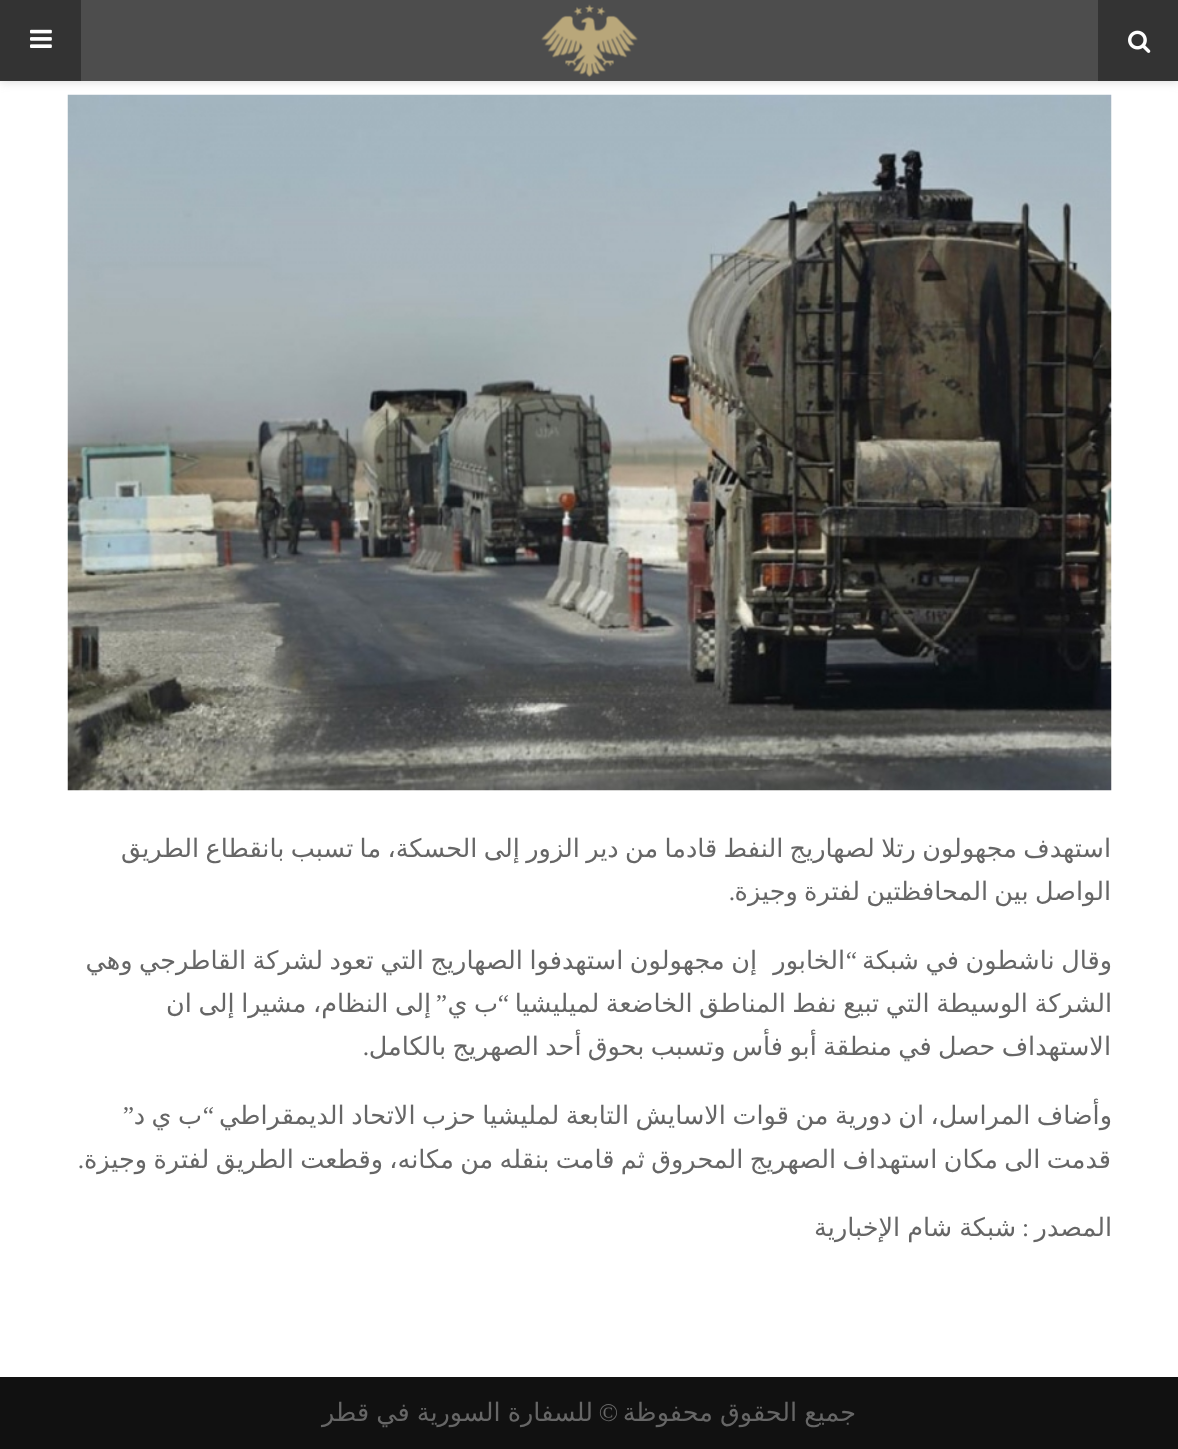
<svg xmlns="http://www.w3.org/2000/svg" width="1178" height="1449">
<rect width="100%" height="100%" fill="#fff"/>
<image x="67" y="94" width="1045" height="697" href="media/4.png"/>
<rect y="2" width="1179" height="81" fill="#bebebe75" filter="blur(4px)"/>
<rect x="81" width="1017" height="81" fill="#4d4d4d"/>
<rect x="1098" width="80" height="81" fill="#333"/>
<image x="1128" y="30" width="23" height="23" href="media/1.png"/>
<image x="541" y="4" width="97" height="73" href="media/2.png"/>
<rect width="81" height="81" fill="#333"/>
<image x="30" y="29" width="22" height="19" href="media/3.png"/>
<text x="1111" y="857" word-spacing="-1.75" style="font-family:DejaVu Sans;font-size:25.5px;direction:rtl;fill:#666">استهدف مجهولون رتلا لصهاريج النفط قادما من دير الزور إلى الحسكة، ما تسبب بانقطاع الطريق</text>
<text x="1111" y="900" word-spacing="-1.75" style="font-family:DejaVu Sans;font-size:25.5px;direction:rtl;fill:#666">الواصل بين المحافظتين لفترة وجيزة</text>
<text x="735" y="900" style="font-family:Liberation Serif;font-size:25.5px;direction:rtl;fill:#666">.</text>
<text x="1112" y="969" word-spacing="-1.5" style="font-family:DejaVu Sans;font-size:25.5px;direction:rtl;fill:#666">وقال ناشطون في شبكة</text>
<text x="857" y="969" style="font-family:Liberation Serif;font-size:25.5px;direction:rtl;fill:#666">“</text>
<text x="845" y="969" style="font-family:DejaVu Sans;font-size:25.5px;direction:rtl;fill:#666">الخابور</text>
<text x="757" y="969" word-spacing="-1.5" style="font-family:DejaVu Sans;font-size:25.5px;direction:rtl;fill:#666">إن مجهولون استهدفوا الصهاريج التي تعود لشركة القاطرجي وهي</text>
<text x="1112" y="1012" word-spacing="-1.5" style="font-family:DejaVu Sans;font-size:25.5px;direction:rtl;fill:#666">الشركة الوسيطة التي تبيع نفط المناطق الخاضعة لميليشيا</text>
<text x="509" y="1012" style="font-family:Liberation Serif;font-size:25.5px;direction:rtl;fill:#666">“</text>
<text x="447" y="1012" style="font-family:Liberation Serif;font-size:25.5px;direction:rtl;fill:#666">”</text>
<text x="431" y="1012" word-spacing="-1.5" style="font-family:DejaVu Sans;font-size:25.5px;direction:rtl;fill:#666">إلى النظام، مشيرا إلى ان</text>
<text x="498" y="1012" word-spacing="-1.5" style="font-family:DejaVu Sans;font-size:25.5px;direction:rtl;fill:#666">ب ي</text>
<text x="1111" y="1055" word-spacing="-1.75" style="font-family:DejaVu Sans;font-size:25.5px;direction:rtl;fill:#666">الاستهداف حصل في منطقة أبو فأس وتسبب بحوق أحد الصهريج بالكامل</text>
<text x="369" y="1055" style="font-family:Liberation Serif;font-size:25.5px;direction:rtl;fill:#666">.</text>
<text x="1112" y="1124" word-spacing="-1.6" style="font-family:DejaVu Sans;font-size:25.5px;direction:rtl;fill:#666">وأضاف المراسل، ان دورية من قوات الاسايش التابعة لمليشيا حزب الاتحاد الديمقراطي</text>
<text x="214" y="1124" style="font-family:Liberation Serif;font-size:25.5px;direction:rtl;fill:#666">“</text>
<text x="134" y="1124" style="font-family:Liberation Serif;font-size:25.5px;direction:rtl;fill:#666">”</text>
<text x="202" y="1124" word-spacing="-1.6" style="font-family:DejaVu Sans;font-size:25.5px;direction:rtl;fill:#666">ب ي د</text>
<text x="1111" y="1168" word-spacing="-1.75" style="font-family:DejaVu Sans;font-size:25.5px;direction:rtl;fill:#666">قدمت الى مكان استهداف الصهريج المحروق ثم قامت بنقله من مكانه، وقطعت الطريق لفترة وجيزة</text>
<text x="84" y="1168" style="font-family:Liberation Serif;font-size:25.5px;direction:rtl;fill:#666">.</text>
<text x="1112" y="1236" style="font-family:DejaVu Sans;font-size:25.5px;direction:rtl;fill:#666">المصدر</text>
<text x="1029" y="1236" style="font-family:Liberation Serif;font-size:25.5px;direction:rtl;fill:#666">:</text>
<text x="1016" y="1236" word-spacing="-1" style="font-family:DejaVu Sans;font-size:25.5px;direction:rtl;fill:#666">شبكة شام الإخبارية</text>
<rect y="1377" width="1178" height="72" fill="#111"/>
<text x="856" y="1421" word-spacing="-1" style="font-family:DejaVu Sans;font-size:25.5px;direction:rtl;fill:#666">جميع الحقوق محفوظة</text>
<text x="618" y="1421" style="font-family:Liberation Serif;font-size:25.5px;direction:rtl;fill:#666">©</text>
<text x="593" y="1421" word-spacing="-1" style="font-family:DejaVu Sans;font-size:25.5px;direction:rtl;fill:#666">للسفارة السورية في قطر</text>
</svg>
